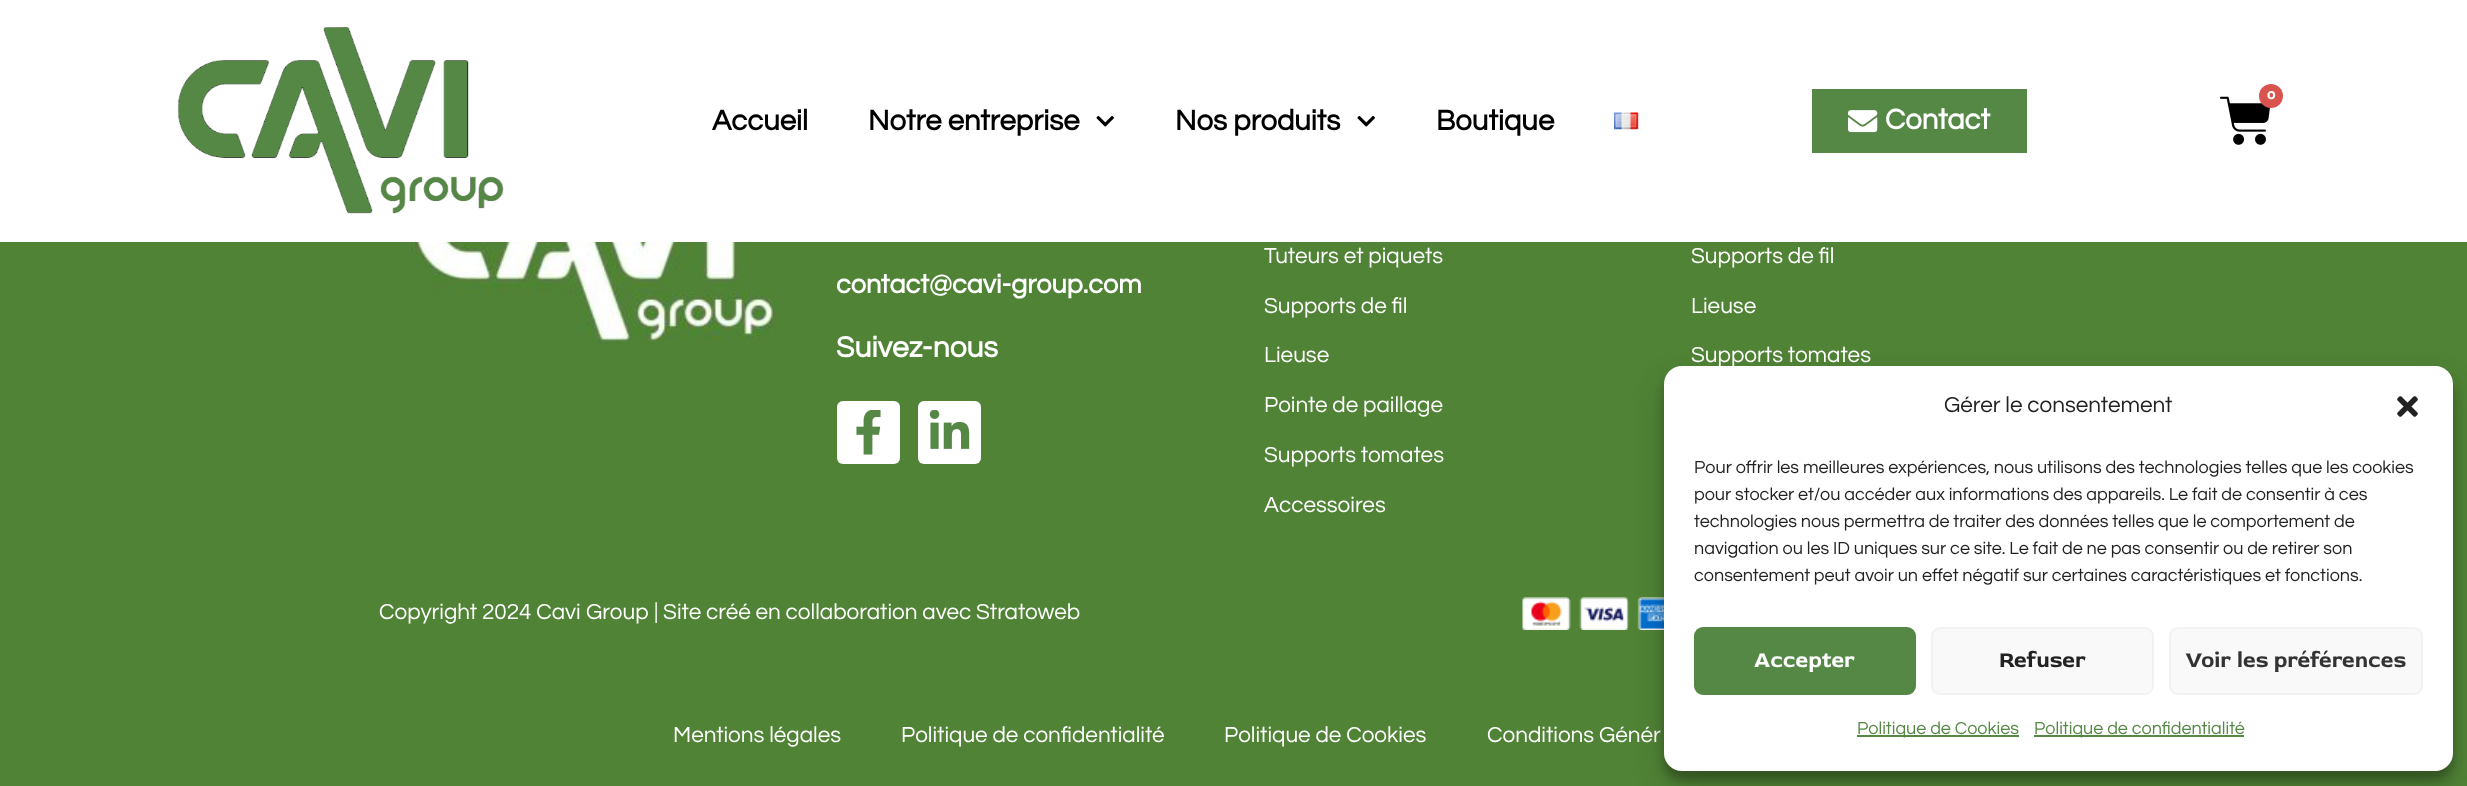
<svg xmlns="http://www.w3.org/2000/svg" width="2467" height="786">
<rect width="100%" height="100%" fill="#508336"/>
<rect width="2467" height="242" fill="#fff"/>
<image x="177" y="27" width="327" height="187" href="media/1.png"/>
<image x="2220" y="96" width="50" height="49" href="media/2.png"/>
<circle cx="2271" cy="96" r="12" fill="#d9534f"/>
<text x="2267" y="99" style="font-family:Zilla Slab;font-size:15px;font-weight:bold;fill:#fff">0</text>
<text x="712" y="130" style="font-family:Questrial;font-size:29.25px;font-weight:bold;fill:#000">Accueil</text>
<text x="868" y="130" style="font-family:Questrial;font-size:29.25px;font-weight:bold;fill:#000">Notre entreprise</text>
<image x="1096" y="115" width="18" height="12" href="media/3.png"/>
<text x="1175" y="130" style="font-family:Questrial;font-size:29.25px;font-weight:bold;fill:#000">Nos produits</text>
<image x="1357" y="115" width="18" height="12" href="media/3.png"/>
<text x="1436" y="130" style="font-family:Questrial;font-size:29.25px;font-weight:bold;fill:#000">Boutique</text>
<image x="1614" y="112" width="25" height="18" href="media/4.png"/>
<rect x="1812" y="89" width="215" height="64" fill="#548844"/>
<image x="1848" y="110" width="30" height="23" href="media/5.png"/>
<text x="1885" y="129" style="font-family:Questrial;font-size:29.25px;font-weight:bold;fill:#fff">Contact</text>
<image x="409" y="242" width="367" height="103" href="media/6.png"/>
<text x="836" y="293" style="font-family:Questrial;font-size:27px;font-weight:bold;fill:#fff">contact@cavi-group.com</text>
<text x="836" y="357" style="font-family:Questrial;font-size:30px;font-weight:bold;fill:#fff">Suivez-nous</text>
<rect x="837" y="401" width="63" height="63" rx="6" fill="#fff"/>
<image x="856" y="410" width="25" height="45" href="media/7.png"/>
<rect x="918" y="401" width="63" height="63" rx="6" fill="#fff"/>
<image x="929" y="410" width="41" height="39" href="media/8.png"/>
<text x="1264" y="263" style="font-family:Questrial;font-size:22.5px;fill:#fff">Tuteurs et piquets</text>
<text x="1264" y="313" style="font-family:Questrial;font-size:22.5px;fill:#fff">Supports de fil</text>
<text x="1264" y="362" style="font-family:Questrial;font-size:22.5px;fill:#fff">Lieuse</text>
<text x="1264" y="412" style="font-family:Questrial;font-size:22.5px;fill:#fff">Pointe de paillage</text>
<text x="1264" y="462" style="font-family:Questrial;font-size:22.5px;fill:#fff">Supports tomates</text>
<text x="1264" y="512" style="font-family:Questrial;font-size:22.5px;fill:#fff">Accessoires</text>
<text x="1691" y="263" style="font-family:Questrial;font-size:22.5px;fill:#fff">Supports de fil</text>
<text x="1691" y="313" style="font-family:Questrial;font-size:22.5px;fill:#fff">Lieuse</text>
<text x="1691" y="362" style="font-family:Questrial;font-size:22.5px;fill:#fff">Supports tomates</text>
<text x="379" y="619" style="font-family:Questrial;font-size:22.5px;fill:#fff">Copyright 2024 Cavi Group | Site créé en collaboration avec Stratoweb</text>
<image x="1522" y="597" width="142" height="33" href="media/9.png"/>
<text x="673" y="742" style="font-family:Questrial;font-size:22.5px;fill:#fff">Mentions légales</text>
<text x="901" y="742" style="font-family:Questrial;font-size:22.5px;fill:#fff">Politique de confidentialité</text>
<text x="1224" y="742" style="font-family:Questrial;font-size:22.5px;fill:#fff">Politique de Cookies</text>
<text x="1487" y="742" style="font-family:Questrial;font-size:22.5px;fill:#fff">Conditions Génér</text>
<rect x="1664" y="375" width="789" height="405" rx="18" fill="#0000003b" filter="blur(4.5px)"/>
<rect x="1664" y="381" width="789" height="405" rx="18" fill="#00000030" filter="blur(15px)"/>
<rect x="1664" y="366" width="789" height="405" rx="18" fill="#fff"/>
<text x="1944" y="412" style="font-family:Questrial;font-size:22.5px;fill:#222">Gérer le consentement</text>
<image x="2397" y="396" width="21" height="21" href="media/10.png"/>
<text x="1694" y="473" style="font-family:Questrial;font-size:18px;fill:#222">Pour offrir les meilleures expériences, nous utilisons des technologies telles que les cookies</text>
<text x="1694" y="500" style="font-family:Questrial;font-size:18px;fill:#222">pour stocker et/ou accéder aux informations des appareils. Le fait de consentir à ces</text>
<text x="1694" y="527" style="font-family:Questrial;font-size:18px;fill:#222">technologies nous permettra de traiter des données telles que le comportement de</text>
<text x="1694" y="554" style="font-family:Questrial;font-size:18px;fill:#222">navigation ou les ID uniques sur ce site. Le fait de ne pas consentir ou de retirer son</text>
<text x="1694" y="581" style="font-family:Questrial;font-size:18px;fill:#222">consentement peut avoir un effet négatif sur certaines caractéristiques et fonctions.</text>
<rect x="1695" y="628" width="220" height="66" rx="8" fill="#548844" stroke="#548844" stroke-width="2"/>
<text x="1754" y="667" style="font-family:Red Rose;font-size:22.5px;font-weight:bold;fill:#fff">Accepter</text>
<rect x="1932" y="628" width="221" height="66" rx="8" fill="#f9f9f9" stroke="#f2f2f2" stroke-width="2"/>
<text x="1999" y="667" style="font-family:Red Rose;font-size:22.5px;font-weight:bold;fill:#222">Refuser</text>
<rect x="2170" y="628" width="252" height="66" rx="8" fill="#f9f9f9" stroke="#f2f2f2" stroke-width="2"/>
<text x="2185" y="667" style="font-family:Red Rose;font-size:22.5px;font-weight:bold;fill:#333">Voir les préférences</text>
<rect x="1857" y="735" width="162" height="2" fill="#548844"/>
<text x="1857" y="734" style="font-family:Questrial;font-size:18px;fill:#548844">Politique de Cookies</text>
<rect x="2034" y="735" width="210" height="2" fill="#548844"/>
<text x="2034" y="734" style="font-family:Questrial;font-size:18px;fill:#548844">Politique de confidentialité</text>
</svg>
